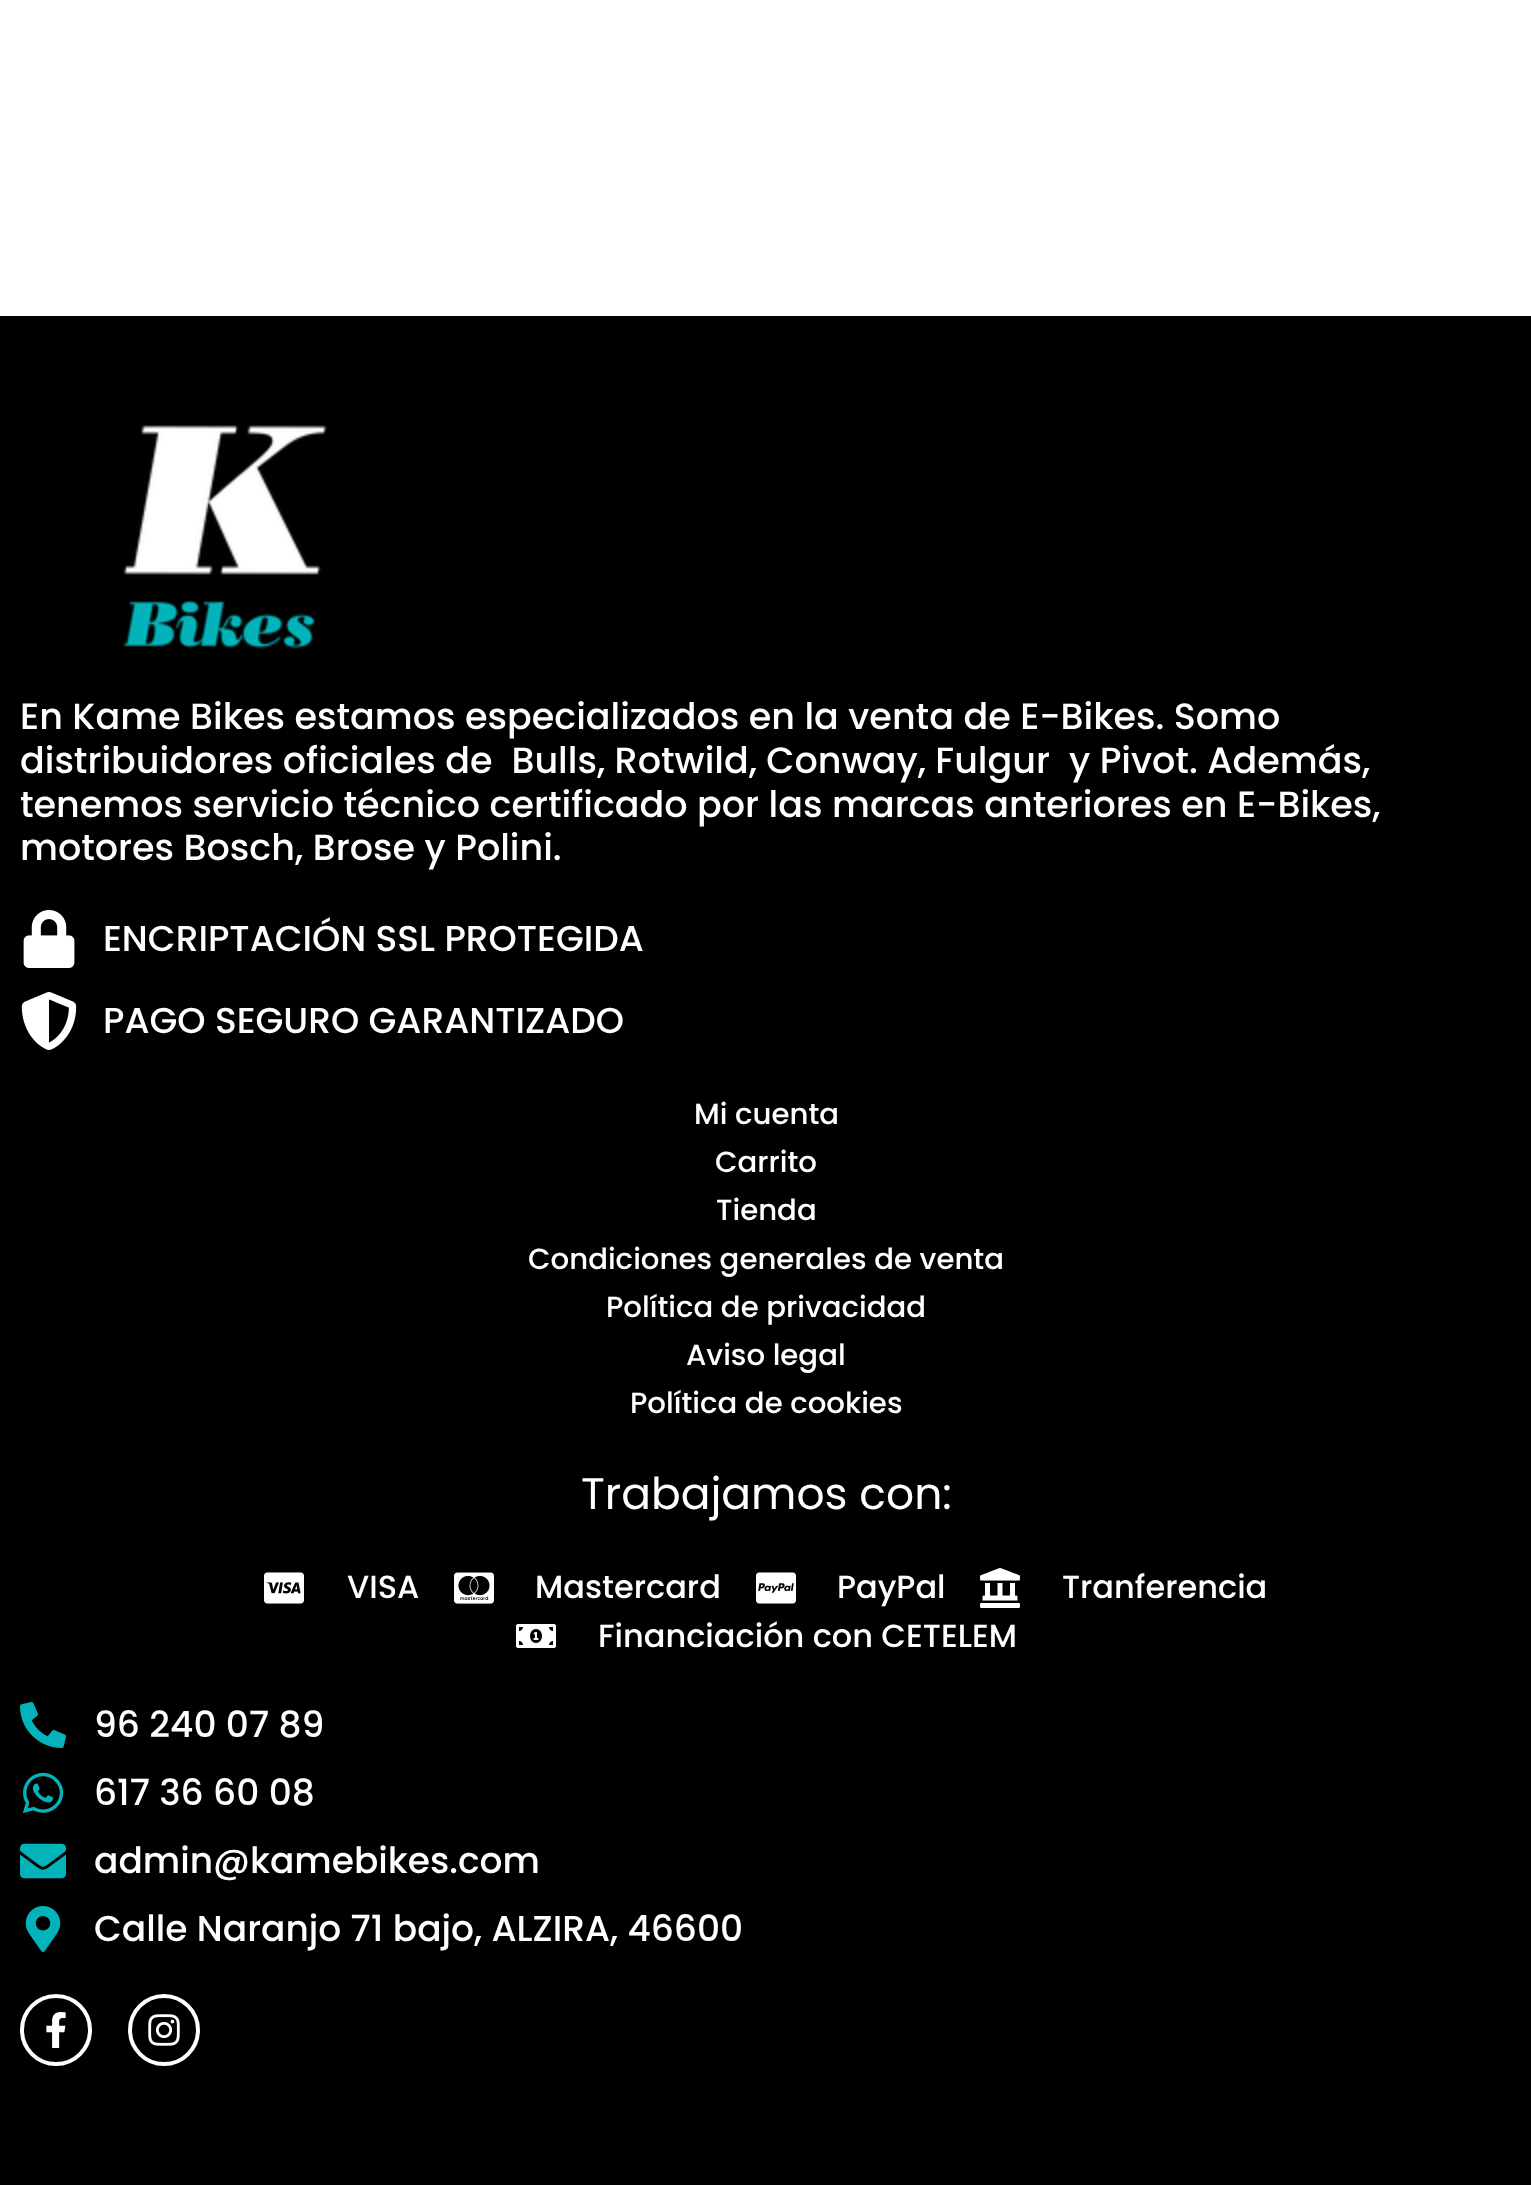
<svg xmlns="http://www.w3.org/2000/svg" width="1531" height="2185">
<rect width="100%" height="100%" fill="#fff"/>
<rect y="316" width="1531" height="1869" fill="#000"/>
<image x="123" y="425" width="204" height="224" href="media/1.png"/>
<text x="20" y="729" style="font-family:Poppins;font-size:36.5px;font-weight:500;fill:#fff">En Kame Bikes estamos especializados en la venta de E-Bikes. Somo</text>
<text x="20" y="773" style="font-family:Poppins;font-size:36.5px;font-weight:500;fill:#fff" xml:space="preserve">distribuidores oficiales de  Bulls, Rotwild, Conway, Fulgur  y Pivot. Además,</text>
<text x="20" y="817" style="font-family:Poppins;font-size:36.5px;font-weight:500;fill:#fff">tenemos servicio técnico certificado por las marcas anteriores en E-Bikes,</text>
<text x="20" y="860" style="font-family:Poppins;font-size:36.5px;font-weight:500;fill:#fff">motores Bosch, Brose y Polini.</text>
<image x="23" y="910" width="52" height="58" href="media/2.png"/>
<text x="103" y="951" style="font-family:Poppins;font-size:36px;font-weight:500;fill:#fff">ENCRIPTACIÓN SSL PROTEGIDA</text>
<image x="21" y="992" width="56" height="58" href="media/3.png"/>
<text x="103" y="1033" style="font-family:Poppins;font-size:36px;font-weight:500;fill:#fff">PAGO SEGURO GARANTIZADO</text>
<text x="694" y="1124" style="font-family:Poppins;font-size:29.2px;font-weight:500;fill:#fff">Mi cuenta</text>
<text x="715" y="1172" style="font-family:Poppins;font-size:29.2px;font-weight:500;fill:#fff">Carrito</text>
<text x="716" y="1220" style="font-family:Poppins;font-size:29.2px;font-weight:500;fill:#fff">Tienda</text>
<text x="528" y="1269" style="font-family:Poppins;font-size:29.2px;font-weight:500;fill:#fff">Condiciones generales de venta</text>
<text x="606" y="1317" style="font-family:Poppins;font-size:29.2px;font-weight:500;fill:#fff">Política de privacidad</text>
<text x="686" y="1365" style="font-family:Poppins;font-size:29.2px;font-weight:500;fill:#fff">Aviso legal</text>
<text x="630" y="1413" style="font-family:Poppins;font-size:29.2px;font-weight:500;fill:#fff">Política de cookies</text>
<text x="581" y="1509" style="font-family:Poppins;font-size:44px;fill:#fff">Trabajamos con:</text>
<image x="264" y="1572" width="40" height="32" href="media/4.png"/>
<text x="347" y="1598" style="font-family:Poppins;font-size:32px;font-weight:500;fill:#fff">VISA</text>
<image x="454" y="1572" width="40" height="32" href="media/5.png"/>
<text x="535" y="1598" style="font-family:Poppins;font-size:32px;font-weight:500;fill:#fff">Mastercard</text>
<image x="756" y="1572" width="40" height="32" href="media/6.png"/>
<text x="837" y="1598" style="font-family:Poppins;font-size:32px;font-weight:500;fill:#fff">PayPal</text>
<image x="980" y="1568" width="40" height="40" href="media/7.png"/>
<text x="1062" y="1598" style="font-family:Poppins;font-size:32px;font-weight:500;fill:#fff">Tranferencia</text>
<image x="516" y="1624" width="40" height="24" href="media/8.png"/>
<text x="598" y="1647" style="font-family:Poppins;font-size:32px;font-weight:500;fill:#fff">Financiación con CETELEM</text>
<image x="20" y="1702" width="46" height="46" href="media/9.png"/>
<text x="94" y="1737" style="font-family:Poppins;font-size:36px;font-weight:500;fill:#fff">96 240 07 89</text>
<image x="23" y="1772" width="41" height="41" href="media/10.png"/>
<text x="94" y="1805" style="font-family:Poppins;font-size:36px;font-weight:500;fill:#fff">617 36 60 08</text>
<image x="20" y="1843" width="46" height="36" href="media/11.png"/>
<text x="94" y="1873" style="font-family:Poppins;font-size:36px;font-weight:500;fill:#fff">admin@kamebikes.com</text>
<image x="25" y="1906" width="36" height="46" href="media/12.png"/>
<text x="94" y="1941" style="font-family:Poppins;font-size:36px;font-weight:500;fill:#fff">Calle Naranjo 71 bajo, ALZIRA, 46600</text>
<circle cx="56" cy="2030" r="34" fill="none" stroke="#fff" stroke-width="4"/>
<image x="46" y="2012" width="20" height="36" href="media/13.png"/>
<circle cx="164" cy="2030" r="34" fill="none" stroke="#fff" stroke-width="4"/>
<image x="148" y="2014" width="32" height="32" href="media/14.png"/>
</svg>
